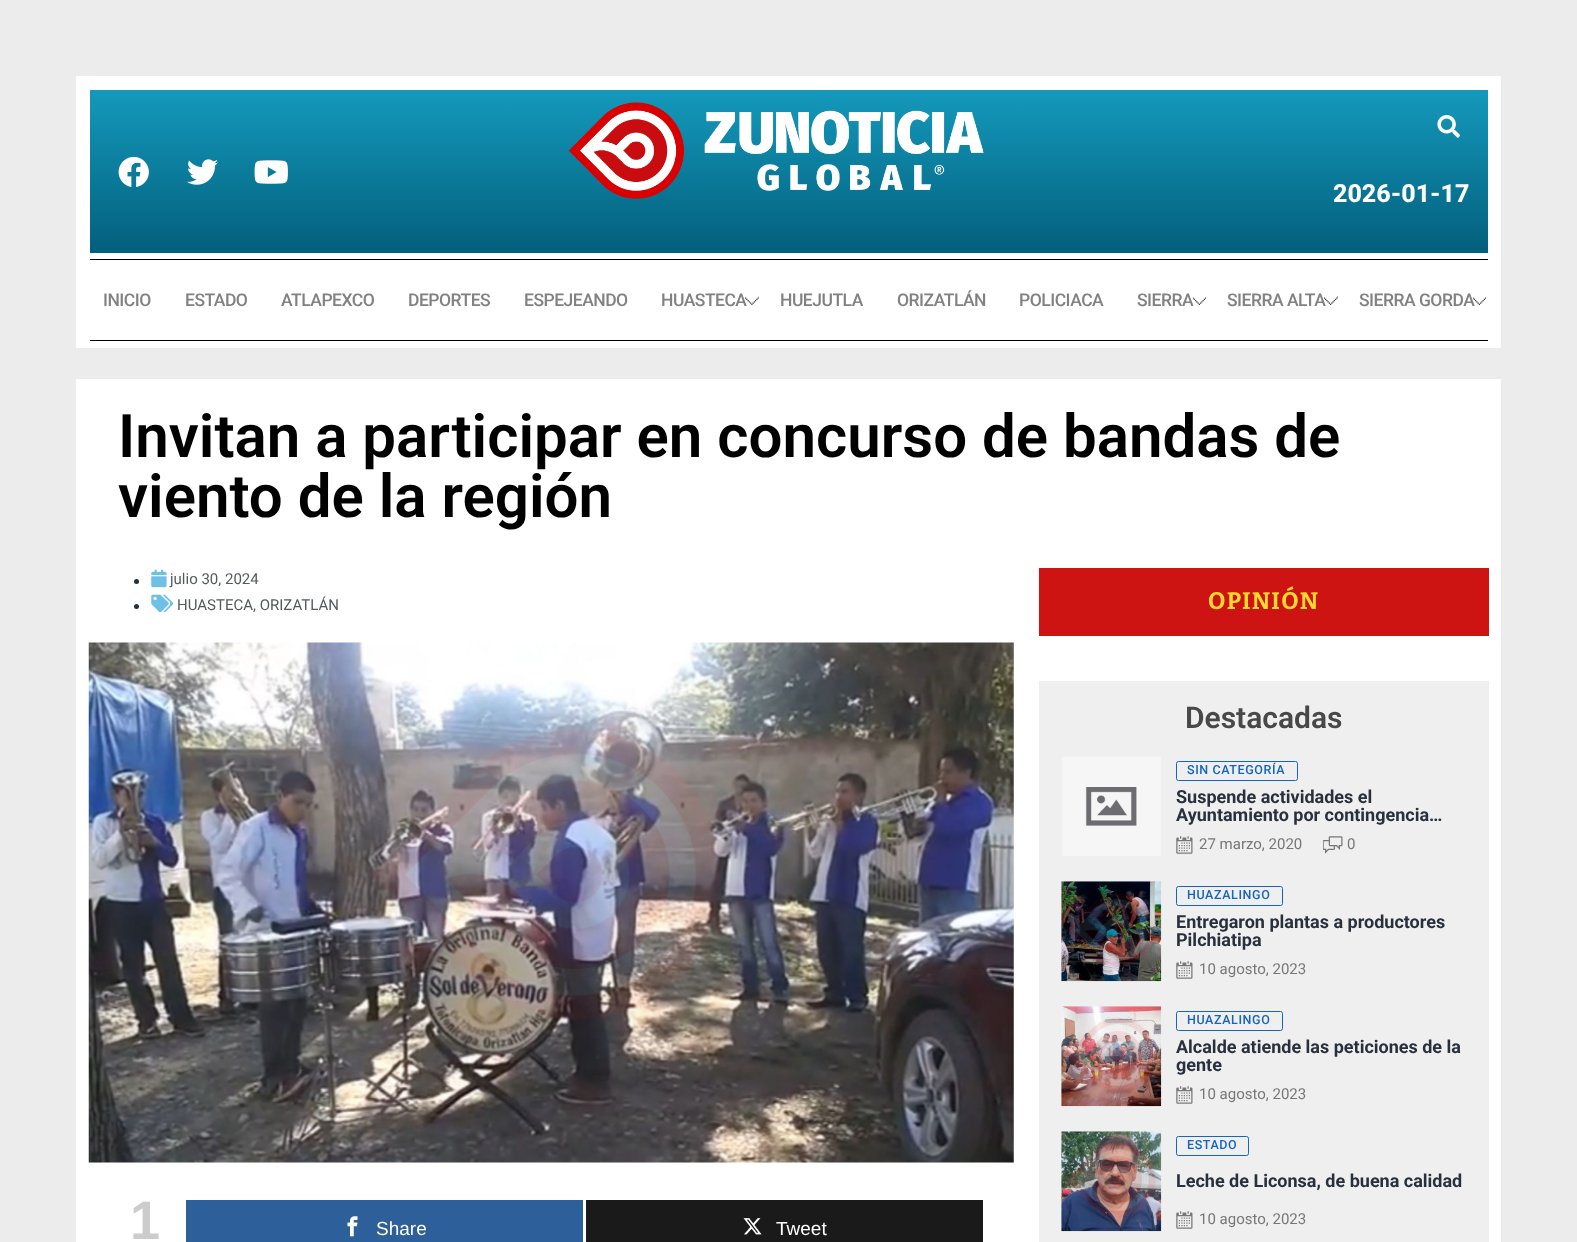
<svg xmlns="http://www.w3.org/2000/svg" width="1577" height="1242">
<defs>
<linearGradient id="g1" gradientUnits="userSpaceOnUse" x1="789" y1="90" x2="789" y2="253"><stop offset="0" stop-color="#1499bc"/><stop offset="1" stop-color="#035f7c"/></linearGradient>
</defs>
<rect width="100%" height="100%" fill="#ececec"/>
<rect x="76" y="76" width="1425" height="272" fill="#fff"/>
<rect x="90" y="90" width="1398" height="163" fill="url(#g1)"/>
<image x="118" y="156" width="31" height="31" href="media/1.png"/>
<image x="187" y="159" width="31" height="26" href="media/2.png"/>
<image x="254" y="160" width="34" height="24" href="media/3.png"/>
<image x="568" y="102" width="416" height="97" href="media/4.png"/>
<image x="1437" y="115" width="24" height="23" href="media/5.png"/>
<text x="1333" y="202" style="font-family:Roboto;font-size:25px;font-weight:800;fill:#fff">2026-01-17</text>
<rect x="90" y="259" width="1398" height="1" fill="#000"/>
<text x="103" y="306" style="font-family:Roboto;font-size:17.5px;font-weight:500;letter-spacing:-0.5px;fill:#818181">INICIO</text>
<text x="185" y="306" style="font-family:Roboto;font-size:17.5px;font-weight:500;letter-spacing:-0.5px;fill:#818181">ESTADO</text>
<text x="281" y="306" style="font-family:Roboto;font-size:17.5px;font-weight:500;letter-spacing:-0.5px;fill:#818181">ATLAPEXCO</text>
<text x="408" y="306" style="font-family:Roboto;font-size:17.5px;font-weight:500;letter-spacing:-0.5px;fill:#818181">DEPORTES</text>
<text x="524" y="306" style="font-family:Roboto;font-size:17.5px;font-weight:500;letter-spacing:-0.5px;fill:#818181">ESPEJEANDO</text>
<text x="661" y="306" style="font-family:Roboto;font-size:17.5px;font-weight:500;letter-spacing:-0.5px;fill:#818181">HUASTECA</text>
<image x="745" y="296" width="14" height="9" href="media/6.png"/>
<text x="780" y="306" style="font-family:Roboto;font-size:17.5px;font-weight:500;letter-spacing:-0.5px;fill:#818181">HUEJUTLA</text>
<text x="897" y="306" style="font-family:Roboto;font-size:17.5px;font-weight:500;letter-spacing:-0.5px;fill:#818181">ORIZATLÁN</text>
<text x="1019" y="306" style="font-family:Roboto;font-size:17.5px;font-weight:500;letter-spacing:-0.5px;fill:#818181">POLICIACA</text>
<text x="1137" y="306" style="font-family:Roboto;font-size:17.5px;font-weight:500;letter-spacing:-0.5px;fill:#818181">SIERRA</text>
<image x="1193" y="297" width="13" height="8" href="media/7.png"/>
<text x="1227" y="306" style="font-family:Roboto;font-size:17.5px;font-weight:500;letter-spacing:-0.5px;fill:#818181">SIERRA ALTA</text>
<image x="1324" y="296" width="14" height="9" href="media/8.png"/>
<text x="1359" y="306" style="font-family:Roboto;font-size:17.5px;font-weight:500;letter-spacing:-0.5px;fill:#818181">SIERRA GORDA</text>
<image x="1473" y="297" width="13" height="8" href="media/9.png"/>
<rect x="90" y="340" width="1398" height="1" fill="#000"/>
<rect x="76" y="379" width="1425" height="176" fill="#fff"/>
<text x="118" y="457" style="font-family:Roboto;font-size:60px;font-weight:600;fill:#000">Invitan a participar en concurso de bandas de</text>
<text x="118" y="517" style="font-family:Roboto;font-size:60px;font-weight:600;fill:#000">viento de la región</text>
<rect x="76" y="555" width="1425" height="687" fill="#fff"/>
<circle cx="136.5" cy="581.5" r="2.5" fill="#28303d"/>
<image x="151" y="569" width="16" height="19" href="media/10.png"/>
<text x="170" y="584" style="font-family:Roboto;font-size:15px;fill:#54595f">julio 30, 2024</text>
<circle cx="136.5" cy="606.5" r="2.5" fill="#28303d"/>
<image x="151" y="594" width="23" height="19" href="media/11.png"/>
<text x="177" y="610" style="font-family:Roboto;font-size:15px;fill:#54595f">HUASTECA, ORIZATLÁN</text>
<image x="88" y="642" width="926" height="521" href="media/12.png"/>
<text x="130" y="1239" style="font-family:Liberation Sans;font-size:54px;font-weight:bold;fill:#ccc">1</text>
<rect x="186" y="1200" width="397" height="42" fill="#2d5f9a"/>
<image x="347" y="1216" width="11" height="21" href="media/13.png"/>
<text x="376" y="1235" style="font-family:Liberation Sans;font-size:19px;fill:#fff">Share</text>
<rect x="586" y="1200" width="397" height="42" fill="#1a1a1a"/>
<image x="743" y="1218" width="19" height="17" href="media/14.png"/>
<text x="776" y="1235" style="font-family:Liberation Sans;font-size:19px;fill:#fff">Tweet</text>
<rect x="1039" y="568" width="450" height="68" fill="#ce1313"/>
<text x="1208" y="609" style="font-family:Bitter;font-size:23.75px;font-weight:bold;letter-spacing:1.25px;fill:#ffdb30">OPINIÓN</text>
<rect x="1039" y="681" width="450" height="561" fill="#efefef"/>
<text x="1185" y="728" style="font-family:Roboto;font-size:30px;font-weight:600;fill:#484848">Destacadas</text>
<image x="1062" y="757" width="99" height="99" href="media/15.png"/>
<rect x="1176.5" y="761.5" width="121" height="19" rx="2" fill="none" stroke="#1565c0"/>
<text x="1187" y="774" style="font-family:Roboto;font-size:12.5px;font-weight:500;letter-spacing:0.6px;fill:#1565c0">SIN CATEGORÍA</text>
<text x="1176" y="803" style="font-family:Roboto;font-size:18px;font-weight:bold;fill:#28303d">Suspende actividades el</text>
<text x="1176" y="821" style="font-family:Roboto;font-size:18px;font-weight:bold;fill:#28303d">Ayuntamiento por contingencia…</text>
<image x="1176" y="836" width="17" height="18" href="media/16.png"/>
<text x="1199" y="849" style="font-family:Roboto;font-size:15px;fill:#777">27 marzo, 2020</text>
<image x="1323" y="836" width="20" height="18" href="media/17.png"/>
<text x="1347" y="849" style="font-family:Roboto;font-size:15px;fill:#777">0</text>
<image x="1061" y="881" width="101" height="101" href="media/18.png"/>
<rect x="1176.5" y="886.5" width="106" height="19" rx="2" fill="none" stroke="#1565c0"/>
<text x="1187" y="899" style="font-family:Roboto;font-size:12.5px;font-weight:500;letter-spacing:0.6px;fill:#1565c0">HUAZALINGO</text>
<text x="1176" y="928" style="font-family:Roboto;font-size:18px;font-weight:bold;fill:#28303d">Entregaron plantas a productores</text>
<text x="1176" y="946" style="font-family:Roboto;font-size:18px;font-weight:bold;fill:#28303d">Pilchiatipa</text>
<image x="1176" y="961" width="17" height="18" href="media/16.png"/>
<text x="1199" y="974" style="font-family:Roboto;font-size:15px;fill:#777">10 agosto, 2023</text>
<image x="1061" y="1006" width="101" height="101" href="media/19.png"/>
<rect x="1176.5" y="1011.5" width="106" height="19" rx="2" fill="none" stroke="#1565c0"/>
<text x="1187" y="1024" style="font-family:Roboto;font-size:12.5px;font-weight:500;letter-spacing:0.6px;fill:#1565c0">HUAZALINGO</text>
<text x="1176" y="1053" style="font-family:Roboto;font-size:18px;font-weight:bold;fill:#28303d">Alcalde atiende las peticiones de la</text>
<text x="1176" y="1071" style="font-family:Roboto;font-size:18px;font-weight:bold;fill:#28303d">gente</text>
<image x="1176" y="1086" width="17" height="18" href="media/16.png"/>
<text x="1199" y="1099" style="font-family:Roboto;font-size:15px;fill:#777">10 agosto, 2023</text>
<image x="1061" y="1131" width="101" height="101" href="media/20.png"/>
<rect x="1176.5" y="1136.5" width="72" height="19" rx="2" fill="none" stroke="#1565c0"/>
<text x="1187" y="1149" style="font-family:Roboto;font-size:12.5px;font-weight:500;letter-spacing:0.6px;fill:#1565c0">ESTADO</text>
<text x="1176" y="1187" style="font-family:Roboto;font-size:18px;font-weight:bold;fill:#28303d">Leche de Liconsa, de buena calidad</text>
<image x="1176" y="1211" width="17" height="18" href="media/16.png"/>
<text x="1199" y="1224" style="font-family:Roboto;font-size:15px;fill:#777">10 agosto, 2023</text>
</svg>
